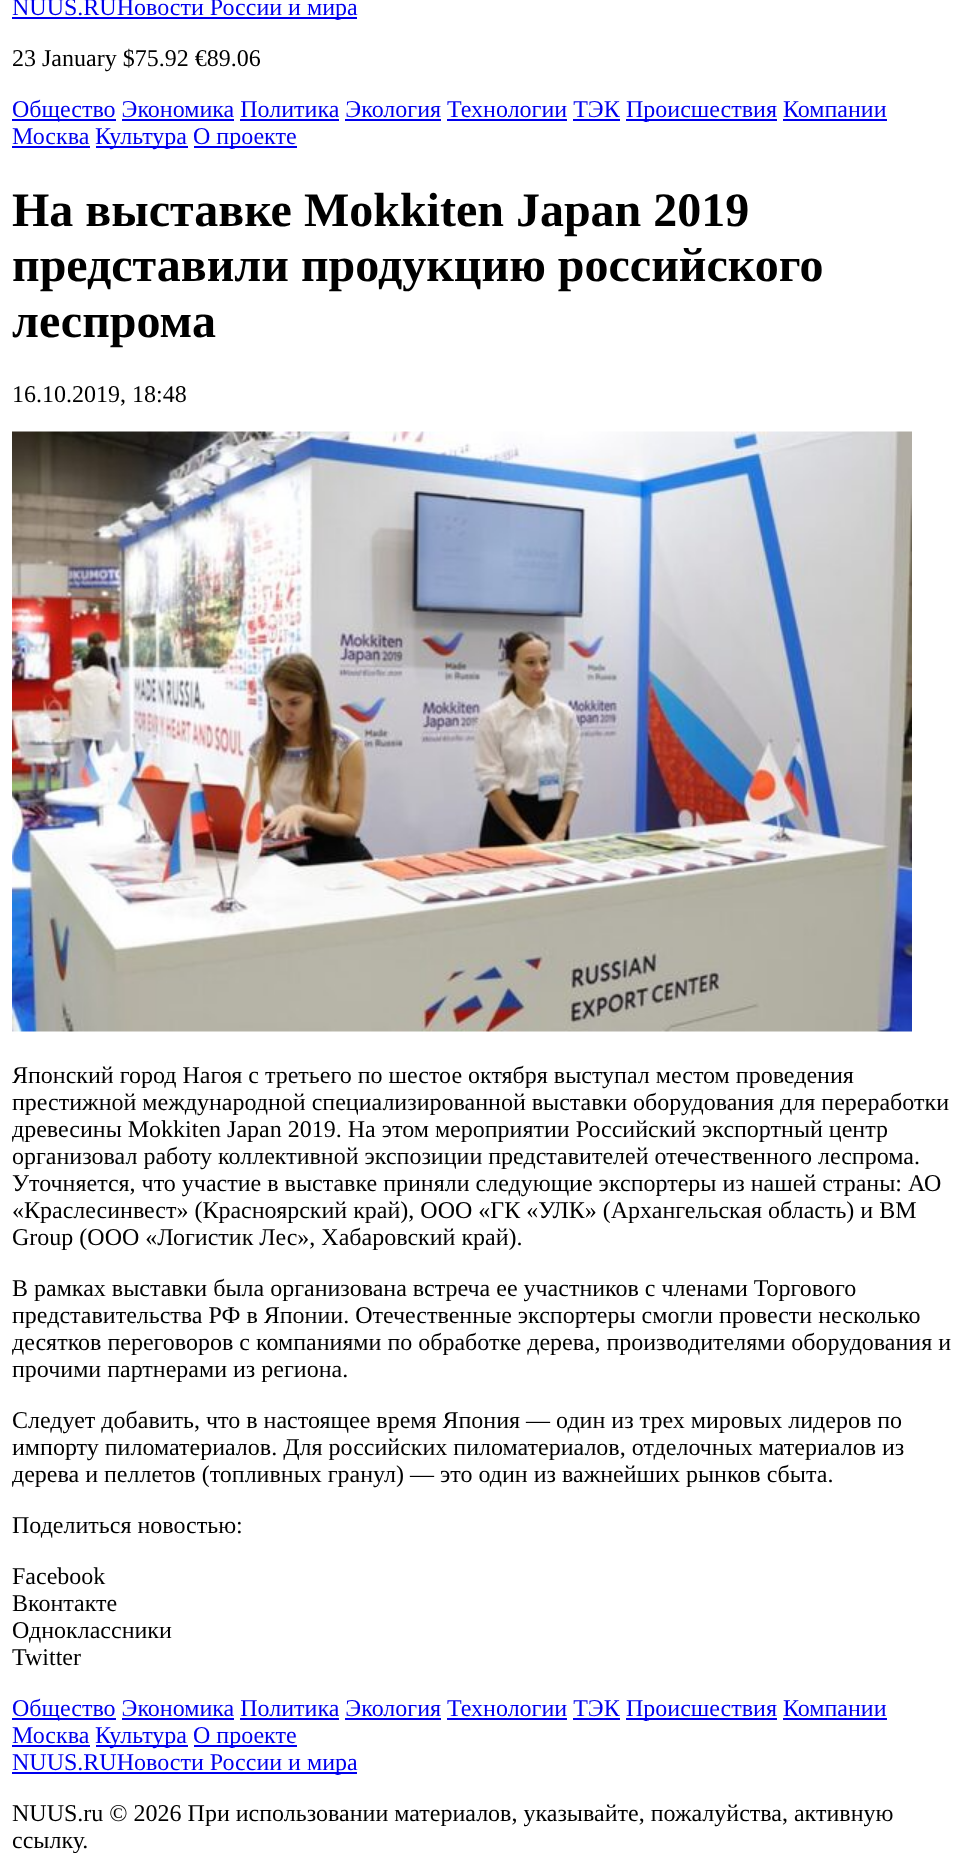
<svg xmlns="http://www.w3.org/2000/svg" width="974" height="1853">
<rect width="100%" height="100%" fill="#fff"/>
<rect x="12" y="17" width="345" height="2" fill="#00e"/>
<text x="12" y="15" style="font-family:Liberation Serif;font-size:24px;fill:#00e">NUUS.RUНовости России и мира</text>
<text x="12" y="66" style="font-family:Liberation Serif;font-size:24px;fill:#000">23 January $75.92 €89.06</text>
<rect x="12" y="119" width="104" height="2" fill="#00e"/>
<text x="12" y="117" style="font-family:Liberation Serif;font-size:24px;fill:#00e">Общество Экономика Политика Экология Технологии ТЭК</text>
<rect x="626" y="119" width="151" height="2" fill="#00e"/>
<text x="626" y="117" style="font-family:Liberation Serif;font-size:24px;fill:#00e">Происшествия Компании</text>
<rect x="122" y="119" width="112" height="2" fill="#00e"/>
<rect x="240" y="119" width="99" height="2" fill="#00e"/>
<rect x="345" y="119" width="96" height="2" fill="#00e"/>
<rect x="447" y="119" width="120" height="2" fill="#00e"/>
<rect x="573" y="119" width="47" height="2" fill="#00e"/>
<rect x="783" y="119" width="104" height="2" fill="#00e"/>
<text x="12" y="144" style="font-family:Liberation Serif;font-size:24px;fill:#00e">Москва</text>
<rect x="12" y="146" width="78" height="2" fill="#00e"/>
<rect x="96" y="146" width="92" height="2" fill="#00e"/>
<text x="95" y="144" style="font-family:Liberation Serif;font-size:24px;fill:#00e">Культура</text>
<rect x="194" y="146" width="103" height="2" fill="#00e"/>
<text x="193" y="144" style="font-family:Liberation Serif;font-size:24px;fill:#00e">О проекте</text>
<text x="12" y="226" style="font-family:Liberation Serif;font-size:48px;font-weight:bold;fill:#000">На выставке Mokkiten Japan 2019</text>
<text x="12" y="281" style="font-family:Liberation Serif;font-size:48px;font-weight:bold;fill:#000">представили продукцию российского</text>
<text x="12" y="337" style="font-family:Liberation Serif;font-size:48px;font-weight:bold;fill:#000">леспрома</text>
<text x="12" y="402" style="font-family:Liberation Serif;font-size:24px;fill:#000">16.10.2019, 18:48</text>
<image x="12" y="431" width="900" height="601" href="media/1.png"/>
<text x="12" y="1083" style="font-family:Liberation Serif;font-size:24px;fill:#000">Японский город Нагоя с третьего по шестое октября выступал местом проведения</text>
<text x="12" y="1110" style="font-family:Liberation Serif;font-size:24px;fill:#000">престижной международной специализированной выставки оборудования для переработки</text>
<text x="12" y="1137" style="font-family:Liberation Serif;font-size:24px;fill:#000">древесины Mokkiten Japan 2019. На этом мероприятии Российский экспортный центр</text>
<text x="12" y="1164" style="font-family:Liberation Serif;font-size:24px;fill:#000">организовал работу коллективной экспозиции представителей отечественного леспрома.</text>
<text x="12" y="1191" style="font-family:Liberation Serif;font-size:24px;fill:#000">Уточняется, что участие в выставке приняли следующие экспортеры из нашей страны: АО</text>
<text x="12" y="1218" style="font-family:Liberation Serif;font-size:24px;fill:#000">«Краслесинвест» (Красноярский край), ООО «ГК «УЛК» (Архангельская область) и BM</text>
<text x="12" y="1245" style="font-family:Liberation Serif;font-size:24px;fill:#000">Group (ООО «Логистик Лес», Хабаровский край).</text>
<text x="12" y="1296" style="font-family:Liberation Serif;font-size:24px;fill:#000">В рамках выставки была организована встреча ее участников с членами Торгового</text>
<text x="12" y="1323" style="font-family:Liberation Serif;font-size:24px;fill:#000">представительства РФ в Японии. Отечественные экспортеры смогли провести несколько</text>
<text x="12" y="1350" style="font-family:Liberation Serif;font-size:24px;fill:#000">десятков переговоров с компаниями по обработке дерева, производителями оборудования и</text>
<text x="12" y="1377" style="font-family:Liberation Serif;font-size:24px;fill:#000">прочими партнерами из региона.</text>
<text x="12" y="1428" style="font-family:Liberation Serif;font-size:24px;fill:#000">Следует добавить, что в настоящее время Япония — один из трех мировых лидеров по</text>
<text x="12" y="1455" style="font-family:Liberation Serif;font-size:24px;fill:#000">импорту пиломатериалов. Для российских пиломатериалов, отделочных материалов из</text>
<text x="12" y="1482" style="font-family:Liberation Serif;font-size:24px;fill:#000">дерева и пеллетов (топливных гранул) — это один из важнейших рынков сбыта.</text>
<text x="12" y="1533" style="font-family:Liberation Serif;font-size:24px;fill:#000">Поделиться новостью:</text>
<text x="12" y="1584" style="font-family:Liberation Serif;font-size:24px;fill:#000">Facebook</text>
<text x="12" y="1611" style="font-family:Liberation Serif;font-size:24px;fill:#000">Вконтакте</text>
<text x="12" y="1638" style="font-family:Liberation Serif;font-size:24px;fill:#000">Одноклассники</text>
<text x="12" y="1665" style="font-family:Liberation Serif;font-size:24px;fill:#000">Twitter</text>
<rect x="12" y="1718" width="104" height="2" fill="#00e"/>
<text x="12" y="1716" style="font-family:Liberation Serif;font-size:24px;fill:#00e">Общество Экономика Политика Экология Технологии ТЭК</text>
<rect x="626" y="1718" width="151" height="2" fill="#00e"/>
<text x="626" y="1716" style="font-family:Liberation Serif;font-size:24px;fill:#00e">Происшествия Компании</text>
<rect x="122" y="1718" width="112" height="2" fill="#00e"/>
<rect x="240" y="1718" width="99" height="2" fill="#00e"/>
<rect x="345" y="1718" width="96" height="2" fill="#00e"/>
<rect x="447" y="1718" width="120" height="2" fill="#00e"/>
<rect x="573" y="1718" width="47" height="2" fill="#00e"/>
<rect x="783" y="1718" width="104" height="2" fill="#00e"/>
<text x="12" y="1743" style="font-family:Liberation Serif;font-size:24px;fill:#00e">Москва</text>
<rect x="12" y="1745" width="78" height="2" fill="#00e"/>
<rect x="96" y="1745" width="92" height="2" fill="#00e"/>
<text x="95" y="1743" style="font-family:Liberation Serif;font-size:24px;fill:#00e">Культура</text>
<rect x="194" y="1745" width="103" height="2" fill="#00e"/>
<text x="193" y="1743" style="font-family:Liberation Serif;font-size:24px;fill:#00e">О проекте</text>
<rect x="12" y="1772" width="345" height="2" fill="#00e"/>
<text x="12" y="1770" style="font-family:Liberation Serif;font-size:24px;fill:#00e">NUUS.RUНовости России и мира</text>
<text x="12" y="1821" style="font-family:Liberation Serif;font-size:24px;fill:#000">NUUS.ru © 2026 При использовании материалов, указывайте, пожалуйства, активную</text>
<text x="12" y="1848" style="font-family:Liberation Serif;font-size:24px;fill:#000">ссылку.</text>
</svg>
